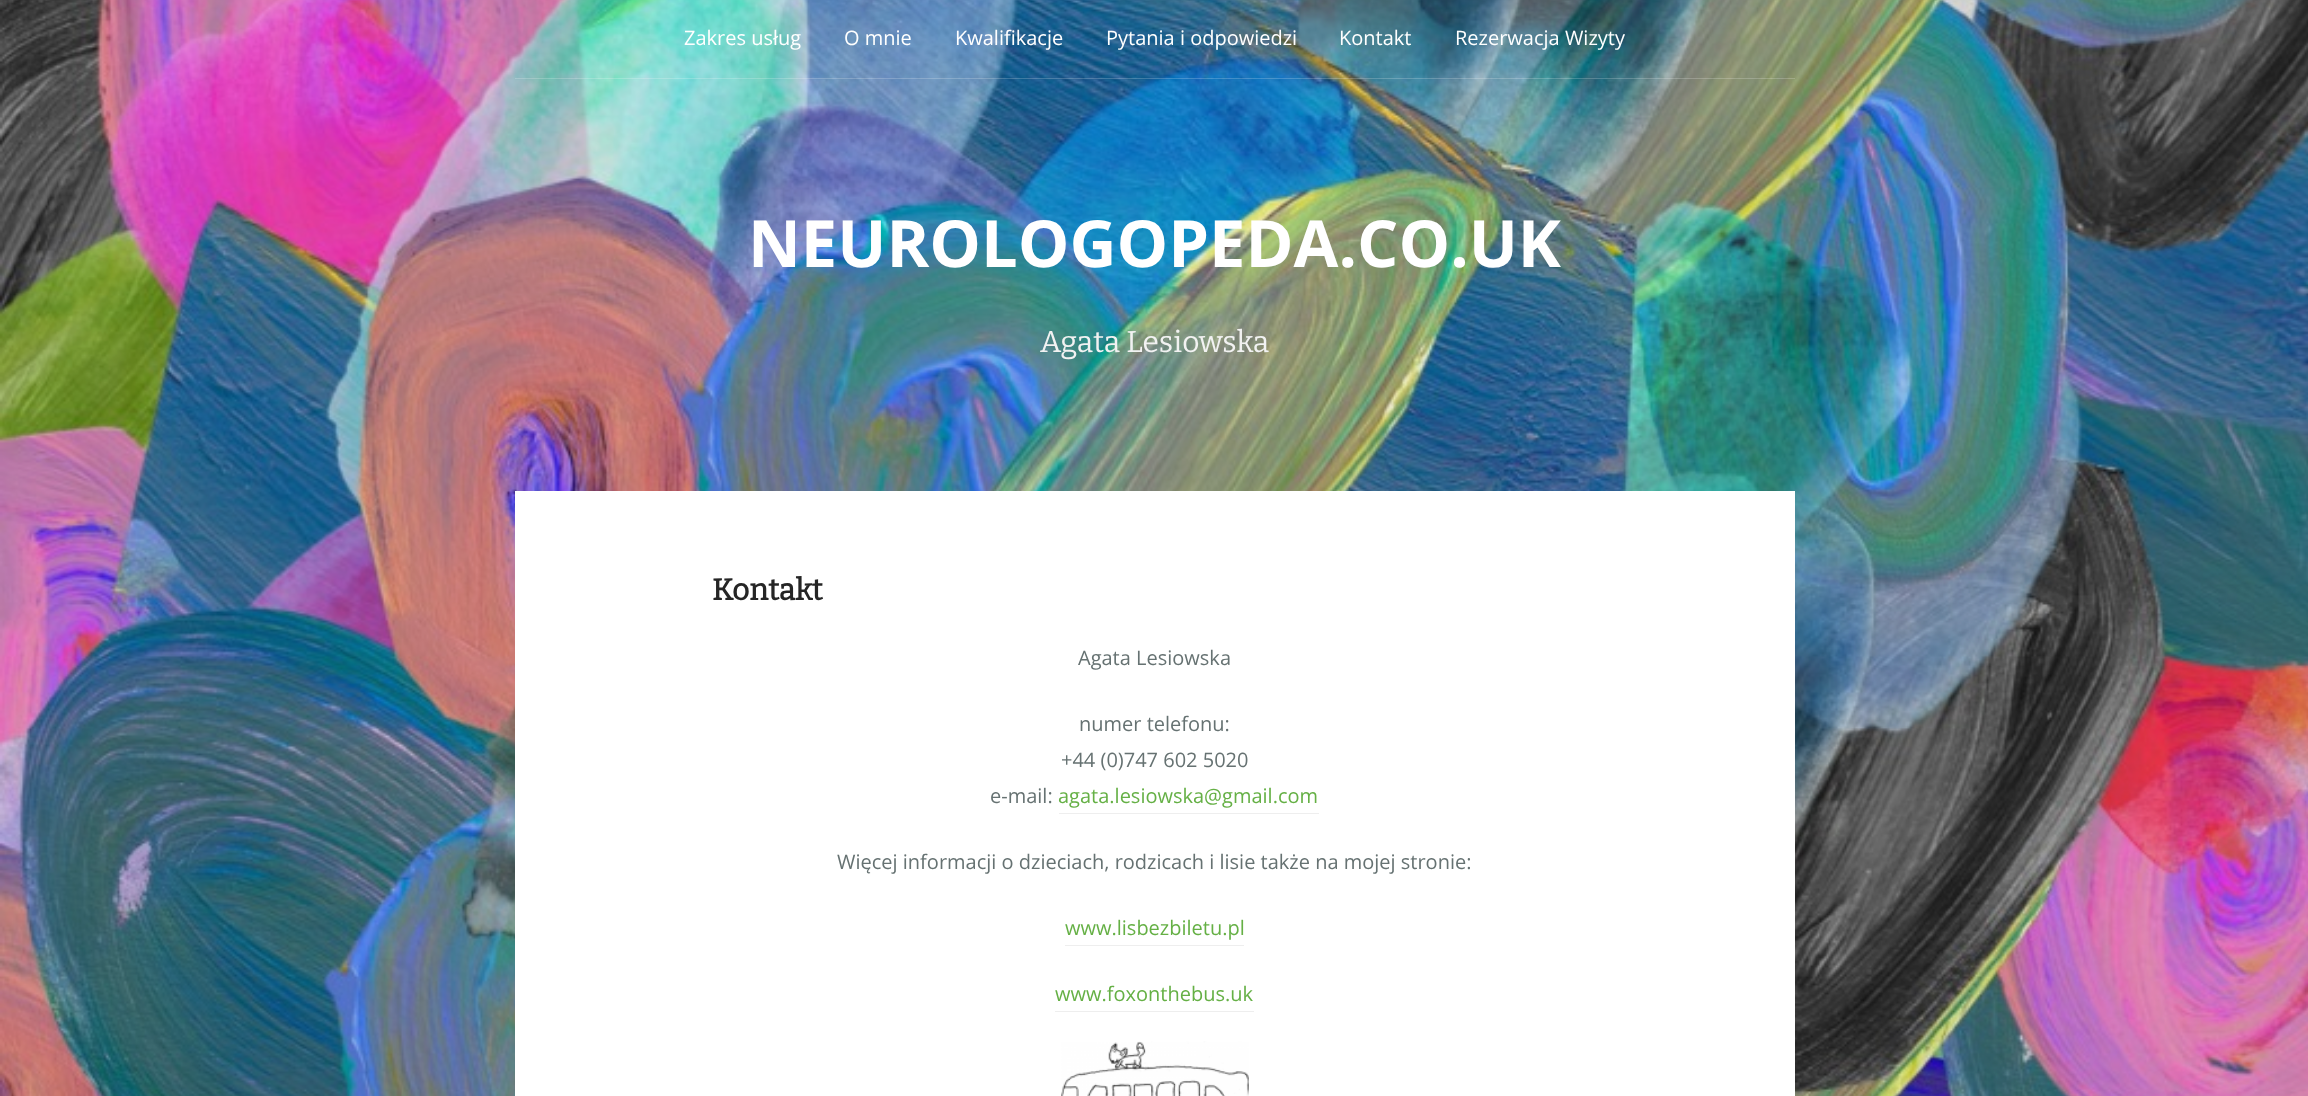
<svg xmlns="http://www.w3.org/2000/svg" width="2308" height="1096">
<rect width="100%" height="100%" fill="#fff"/>
<image x="0" y="0" width="2308" height="1096" href="media/1.png"/>
<rect x="515" y="78" width="1280" height="1" fill="#ffffff33"/>
<text x="684" y="45" style="font-family:Open Sans;font-size:20px;fill:#fff">Zakres usług</text>
<text x="844" y="45" style="font-family:Open Sans;font-size:20px;fill:#fff">O mnie</text>
<text x="955" y="45" style="font-family:Open Sans;font-size:20px;fill:#fff">Kwalifikacje</text>
<text x="1106" y="45" style="font-family:Open Sans;font-size:20px;fill:#fff">Pytania i odpowiedzi</text>
<text x="1339" y="45" style="font-family:Open Sans;font-size:20px;fill:#fff">Kontakt</text>
<text x="1455" y="45" style="font-family:Open Sans;font-size:20px;fill:#fff">Rezerwacja Wizyty</text>
<text x="748" y="267" style="font-family:Open Sans;font-size:65px;font-weight:bold;fill:#fff">NEUROLOGOPEDA.CO.UK</text>
<text x="1040" y="352" style="font-family:Bitter;font-size:30px;font-weight:100;fill:#f2f2f2">Agata Lesiowska</text>
<rect x="515" y="491" width="1280" height="605" fill="#fff"/>
<text x="712" y="600" style="font-family:Bitter;font-size:30px;font-weight:bold;fill:#252525">Kontakt</text>
<text x="1078" y="665" style="font-family:Open Sans;font-size:20px;fill:#667272">Agata Lesiowska</text>
<text x="1079" y="731" style="font-family:Open Sans;font-size:20px;fill:#667272">numer telefonu:</text>
<text x="1061" y="767" style="font-family:Open Sans;font-size:20px;fill:#667272">+44 (0)747 602 5020</text>
<text x="990" y="803" style="font-family:Open Sans;font-size:20px;fill:#667272">e-mail:</text>
<text x="1058" y="803" style="font-family:Open Sans;font-size:20px;fill:#65b045">agata.lesiowska@gmail.com</text>
<rect x="1059" y="813" width="260" height="1" fill="#eee"/>
<text x="837" y="869" style="font-family:Open Sans;font-size:20px;fill:#667272">Więcej informacji o dzieciach, rodzicach i lisie także na mojej stronie:</text>
<text x="1065" y="935" style="font-family:Open Sans;font-size:20px;fill:#65b045">www.lisbezbiletu.pl</text>
<rect x="1065" y="945" width="179" height="1" fill="#eee"/>
<text x="1055" y="1001" style="font-family:Open Sans;font-size:20px;fill:#65b045">www.foxonthebus.uk</text>
<rect x="1055" y="1011" width="199" height="1" fill="#eee"/>
<image x="1061" y="1041" width="188" height="55" href="media/2.png"/>
</svg>
